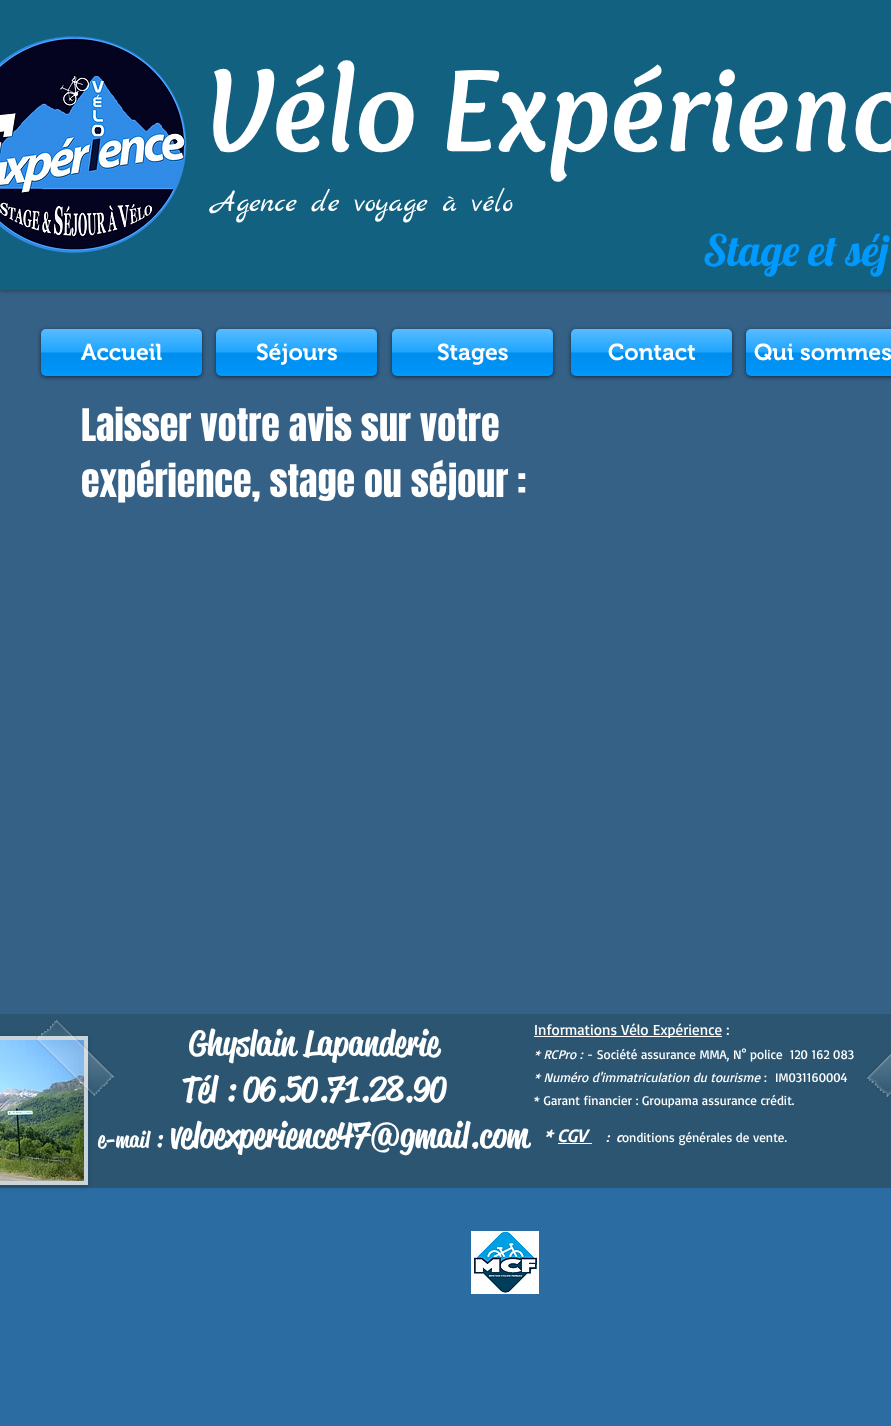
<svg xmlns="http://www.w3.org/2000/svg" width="891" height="1426">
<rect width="100%" height="100%" fill="#2b6ca3"/>
<rect y="290" width="891" height="724" fill="#356187"/>
<rect width="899" height="290" fill="#181818b3" filter="blur(2.5px)"/>
<rect width="891" height="290" fill="#126180"/>
<image x="0" y="36" width="187" height="217" href="media/1.png"/>
<text x="204" y="151" style="font-family:Overlock;font-size:122px;font-weight:bold;font-style:italic;fill:#fff">Vélo Expérienc</text>
<text x="212" y="211" style="font-family:Marck Script;font-size:30px;fill:#fff">Agence de voyage à vélo</text>
<text x="703" y="266" style="font-family:Lobster;font-size:43px;fill:#09f">Stage et séj</text>
<rect x="41" y="330" width="161" height="47" rx="5" fill="#00000099" filter="blur(2px)"/>
<rect x="41" y="329" width="161" height="47" rx="5" fill="#09f"/>
<image x="41" y="329" width="161" height="44" href="media/2.png"/>
<text x="81" y="360" style="font-family:'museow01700';font-size:23px;font-weight:600;fill:#fff">Accueil</text>
<rect x="216" y="330" width="161" height="47" rx="5" fill="#00000099" filter="blur(2px)"/>
<rect x="216" y="329" width="161" height="47" rx="5" fill="#09f"/>
<image x="216" y="329" width="161" height="44" href="media/2.png"/>
<text x="256" y="360" style="font-family:'museow01700';font-size:23px;font-weight:600;fill:#fff">Séjours</text>
<rect x="392" y="330" width="161" height="47" rx="5" fill="#00000099" filter="blur(2px)"/>
<rect x="392" y="329" width="161" height="47" rx="5" fill="#09f"/>
<image x="392" y="329" width="161" height="44" href="media/2.png"/>
<text x="437" y="360" style="font-family:'museow01700';font-size:23px;font-weight:600;fill:#fff">Stages</text>
<rect x="571" y="330" width="161" height="47" rx="5" fill="#00000099" filter="blur(2px)"/>
<rect x="571" y="329" width="161" height="47" rx="5" fill="#09f"/>
<image x="571" y="329" width="161" height="44" href="media/2.png"/>
<text x="608" y="360" style="font-family:'museow01700';font-size:23px;font-weight:600;fill:#fff">Contact</text>
<rect x="746" y="330" width="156" height="47" rx="5" fill="#00000099" filter="blur(2px)"/>
<rect x="746" y="329" width="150" height="47" rx="5" fill="#09f"/>
<image x="746" y="329" width="145" height="44" href="media/3.png"/>
<text x="754" y="360" style="font-family:'museow01700';font-size:23px;font-weight:600;fill:#fff">Qui sommes</text>
<text x="81" y="441" style="font-family:Anton;font-size:38px;fill:#fff">Laisser votre avis sur votre</text>
<text x="81" y="497" style="font-family:Anton;font-size:38px;fill:#fff">expérience, stage ou séjour :</text>
<rect y="1014" width="891" height="174" fill="#2b5570"/>
<rect x="-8" y="1038" width="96" height="149" fill="#00000026" filter="blur(2.5px)"/>
<rect x="-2" y="1038" width="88" height="145" fill="none" stroke="#cad5db" stroke-width="4"/>
<image x="0" y="1040" width="84" height="141" href="media/5.png"/>
<image x="36" y="1020" width="79" height="76" href="media/4.png"/>
<text x="189" y="1055" style="font-family:'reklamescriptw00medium';font-size:35px;font-weight:500;fill:#fff">Ghyslain Lapanderie</text>
<text x="182" y="1101" style="font-family:'reklamescriptw00medium';font-size:35px;font-weight:500;fill:#fff">Tél : 06.50.71.28.90</text>
<text x="98" y="1147" style="font-family:'reklamescriptw00medium';font-size:22px;font-weight:500;fill:#fff">e-mail</text>
<text x="155" y="1147" style="font-family:'reklamescriptw00medium';font-size:25px;font-weight:500;fill:#fff">:</text>
<text x="170" y="1147" style="font-family:'reklamescriptw00medium';font-size:35px;font-weight:500;fill:#fff">veloexperience47@gmail.com</text>
<rect x="534" y="1036" width="188" height="1" fill="#fff"/>
<text x="534" y="1035" style="font-family:Basic;font-size:15px;fill:#fff">Informations Vélo Expérience :</text>
<text x="534" y="1059" style="font-family:Basic;font-size:13px;font-style:italic;fill:#fff">* RCPro :</text>
<text x="587" y="1059" style="font-family:Basic;font-size:13px;fill:#fff" xml:space="preserve">- Société assurance MMA, N° police  120 162 083</text>
<text x="534" y="1082" style="font-family:Basic;font-size:13px;font-style:italic;fill:#fff">* Numéro d'immatriculation du tourisme</text>
<text x="764" y="1082" style="font-family:Basic;font-size:13px;fill:#fff">:</text>
<text x="775" y="1082" style="font-family:Basic;font-size:13px;fill:#fff">IM031160004</text>
<text x="534" y="1105" style="font-family:Basic;font-size:13px;fill:#fff">* Garant financier : Groupama assurance crédit.</text>
<text x="544" y="1142" style="font-family:Basic;font-size:18px;font-weight:bold;font-style:italic;fill:#fff">* CGV</text>
<rect x="558" y="1143" width="34" height="1" fill="#fff"/>
<text x="606" y="1142" style="font-family:Basic;font-size:13px;font-weight:bold;font-style:italic;fill:#fff" xml:space="preserve">:  c</text>
<text x="622" y="1142" style="font-family:Basic;font-size:13px;fill:#fff">onditions générales de vente.</text>
<image x="867" y="1053" width="24" height="45" href="media/6.png"/>
<image x="471" y="1231" width="68" height="63" href="media/7.png"/>
</svg>
